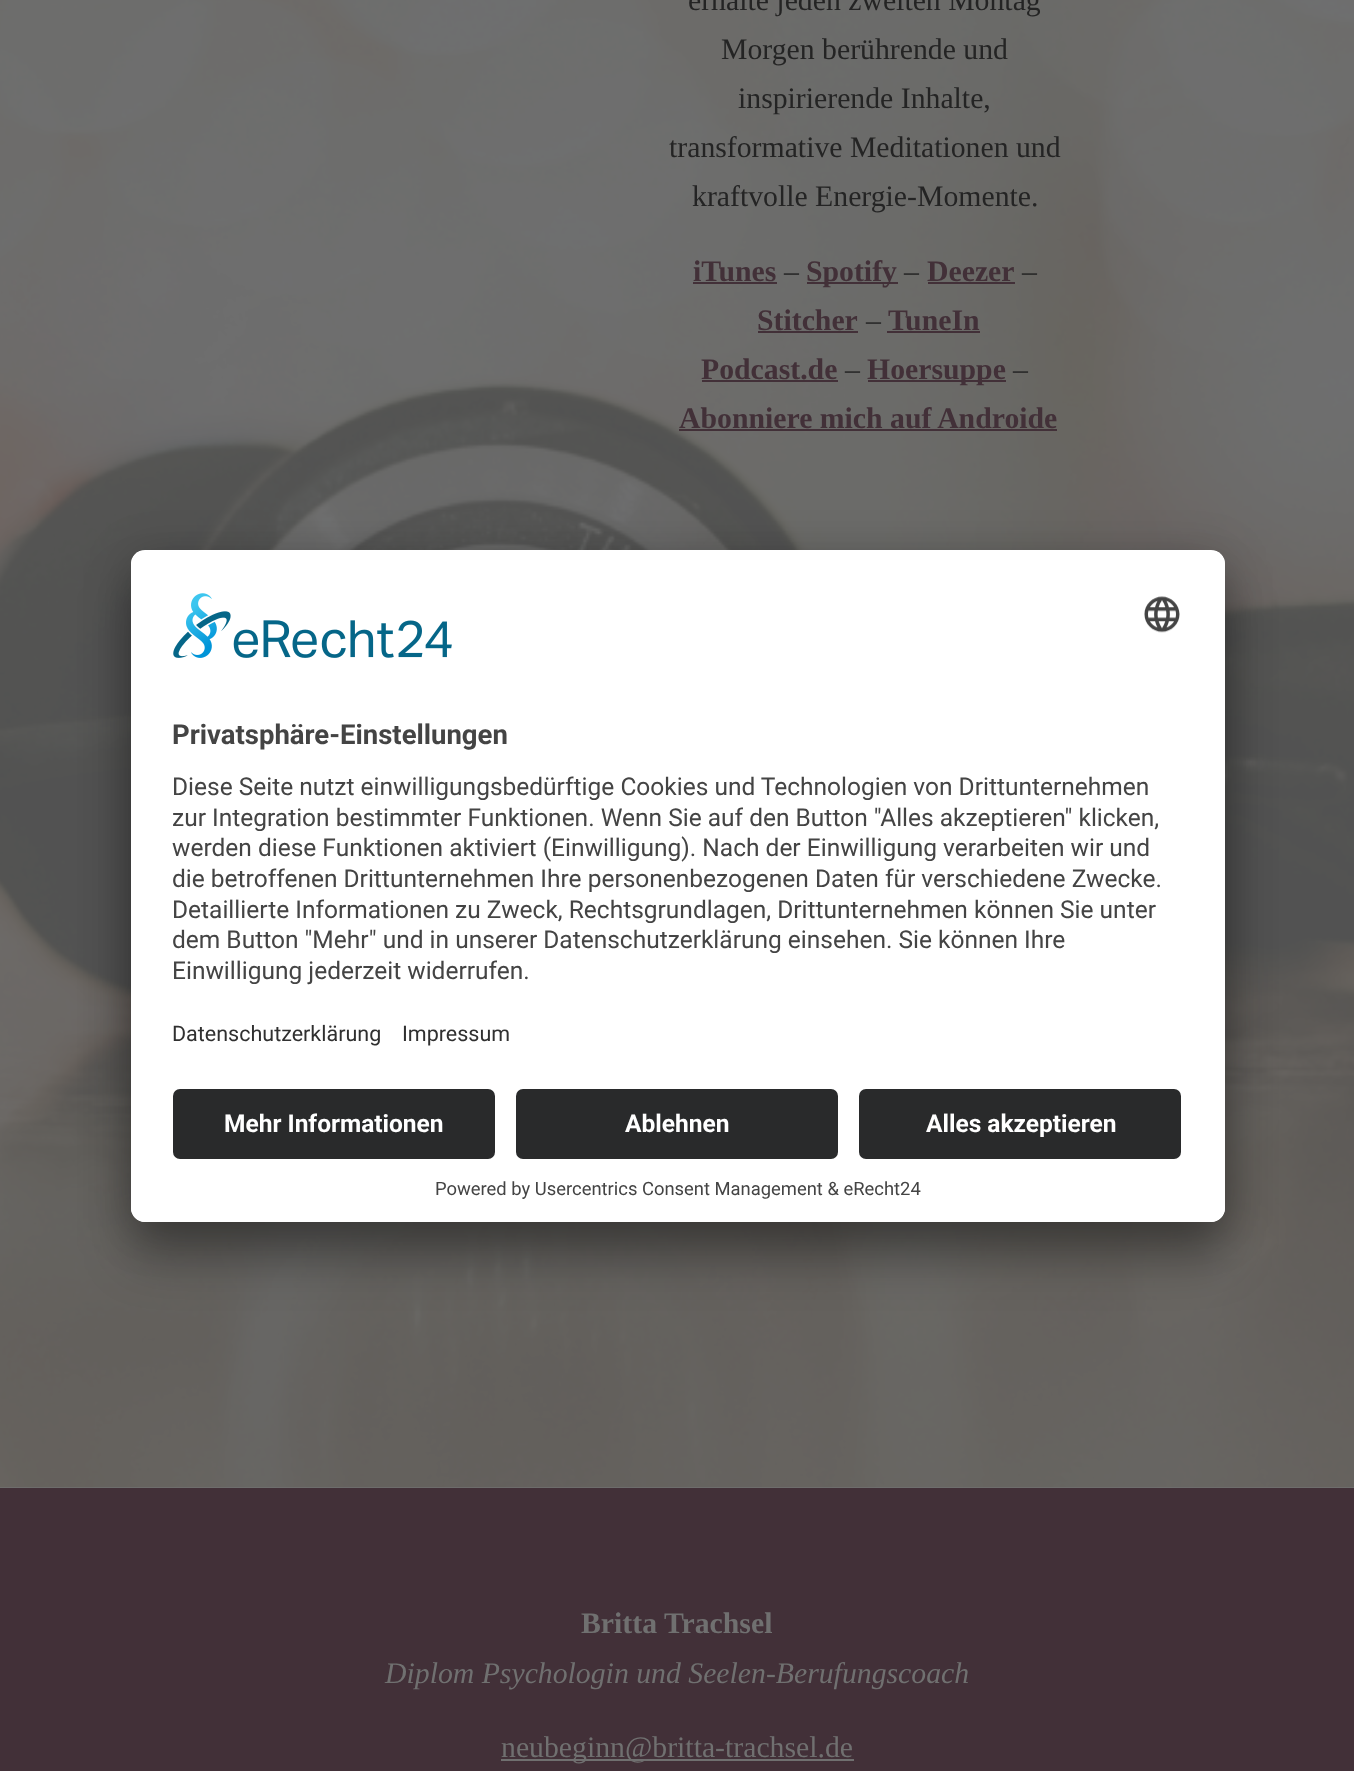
<svg xmlns="http://www.w3.org/2000/svg" width="1354" height="1771">
<defs>
<clipPath id="clip1"><rect x="131" y="550" width="1094" height="672" rx="14"/></clipPath>
<clipPath id="clip2"><path d="M145 550h1066c7.5 0 14 6.5 14 14v511h-1094v-511c0-7.5 6.5-14 14-14z"/></clipPath>
</defs>
<rect width="100%" height="100%" fill="#423038"/>
<rect y="1487" width="1354" height="1" fill="#707070"/>
<image x="0" y="0" width="1354" height="1488" href="media/1.png"/>
<text x="688" y="10" style="font-family:Liberation Serif;font-size:29.75px;fill:#242424">erhalte jeden zweiten Montag</text>
<text x="721" y="59" style="font-family:Liberation Serif;font-size:29.75px;fill:#242424">Morgen berührende und</text>
<text x="738" y="108" style="font-family:Liberation Serif;font-size:29.75px;fill:#242424">inspirierende Inhalte,</text>
<text x="669" y="157" style="font-family:Liberation Serif;font-size:29.75px;fill:#242424">transformative Meditationen und</text>
<text x="692" y="206" style="font-family:Liberation Serif;font-size:29.75px;fill:#242424">kraftvolle Energie-Momente.</text>
<text x="693" y="281" style="font-family:Liberation Serif;font-size:29.75px;font-weight:bold;fill:#423038">iTunes</text>
<rect x="693" y="282" width="84" height="2" fill="#423038"/>
<text x="784" y="281" style="font-family:Liberation Serif;font-size:29.75px;fill:#242424">–</text>
<rect x="807" y="282" width="91" height="2" fill="#423038"/>
<text x="806" y="281" style="font-family:Liberation Serif;font-size:29.75px;font-weight:bold;fill:#423038">Spotify</text>
<text x="904" y="281" style="font-family:Liberation Serif;font-size:29.75px;fill:#242424">–</text>
<text x="927" y="281" style="font-family:Liberation Serif;font-size:29.75px;font-weight:bold;fill:#423038">Deezer</text>
<rect x="928" y="282" width="87" height="2" fill="#423038"/>
<text x="1022" y="281" style="font-family:Liberation Serif;font-size:29.75px;fill:#242424">–</text>
<text x="757" y="330" style="font-family:Liberation Serif;font-size:29.75px;font-weight:bold;fill:#423038">Stitcher</text>
<rect x="758" y="331" width="100" height="2" fill="#423038"/>
<text x="866" y="330" style="font-family:Liberation Serif;font-size:29.75px;fill:#242424">–</text>
<text x="888" y="330" style="font-family:Liberation Serif;font-size:29.75px;font-weight:bold;fill:#423038">TuneIn</text>
<rect x="887" y="331" width="93" height="2" fill="#423038"/>
<text x="701" y="379" style="font-family:Liberation Serif;font-size:29.75px;font-weight:bold;fill:#423038">Podcast.de</text>
<rect x="702" y="380" width="136" height="2" fill="#423038"/>
<text x="845" y="379" style="font-family:Liberation Serif;font-size:29.75px;fill:#242424">–</text>
<rect x="868" y="380" width="138" height="2" fill="#423038"/>
<text x="867" y="379" style="font-family:Liberation Serif;font-size:29.75px;font-weight:bold;fill:#423038">Hoersuppe</text>
<text x="1013" y="379" style="font-family:Liberation Serif;font-size:29.75px;fill:#242424">–</text>
<text x="679" y="428" style="font-family:Liberation Serif;font-size:29.75px;font-weight:bold;fill:#423038">Abonniere mich auf Androide</text>
<rect x="679" y="429" width="378" height="2" fill="#423038"/>
<text x="581" y="1633" style="font-family:Liberation Serif;font-size:29.75px;font-weight:bold;fill:#707070">Britta Trachsel</text>
<text x="385" y="1683" style="font-family:Liberation Serif;font-size:29.75px;font-style:italic;fill:#707070">Diplom Psychologin und Seelen-Berufungscoach</text>
<rect x="501" y="1759" width="353" height="2" fill="#707070"/>
<text x="501" y="1757" style="font-family:Liberation Serif;font-size:29.75px;fill:#707070">neubeginn@britta-trachsel.de</text>
<rect x="131" y="585" width="1094" height="672" rx="14" fill="#0000004d" filter="blur(24.5px)"/>
<rect x="131" y="558" width="1094" height="672" rx="14" fill="#00000038" filter="blur(23px)"/>
<rect x="131" y="550" width="1094" height="672" rx="14" fill="#fff"/>
<g clip-path="url(#clip1)">
<g clip-path="url(#clip2)">
<rect x="131" y="551" width="1094" height="524" fill="#fff"/>
</g>
</g>
<image x="173" y="593" width="279" height="65" href="media/2.png"/>
<image x="1144" y="596" width="36" height="37" href="media/3.png"/>
<text x="172" y="744" style="font-family:Roboto;font-size:27.5px;font-weight:bold;fill:#444">Privatsphäre-Einstellungen</text>
<text x="172" y="795" style="font-family:Roboto;font-size:24.5px;fill:#444">Diese Seite nutzt einwilligungsbedürftige Cookies und Technologien von Drittunternehmen</text>
<text x="172" y="826" style="font-family:Roboto;font-size:24.5px;fill:#444">zur Integration bestimmter Funktionen. Wenn Sie auf den Button "Alles akzeptieren" klicken,</text>
<text x="172" y="856" style="font-family:Roboto;font-size:24.5px;fill:#444">werden diese Funktionen aktiviert (Einwilligung). Nach der Einwilligung verarbeiten wir und</text>
<text x="172" y="887" style="font-family:Roboto;font-size:24.5px;fill:#444">die betroffenen Drittunternehmen Ihre personenbezogenen Daten für verschiedene Zwecke.</text>
<text x="172" y="918" style="font-family:Roboto;font-size:24.5px;fill:#444">Detaillierte Informationen zu Zweck, Rechtsgrundlagen, Drittunternehmen können Sie unter</text>
<text x="172" y="948" style="font-family:Roboto;font-size:24.5px;fill:#444">dem Button "Mehr" und in unserer Datenschutzerklärung einsehen. Sie können Ihre</text>
<text x="172" y="979" style="font-family:Roboto;font-size:24.5px;fill:#444">Einwilligung jederzeit widerrufen.</text>
<text x="172" y="1041" style="font-family:Roboto;font-size:21.5px;fill:#303030">Datenschutzerklärung</text>
<text x="402" y="1041" style="font-family:Roboto;font-size:21.5px;fill:#303030">Impressum</text>
<path d="M131 1075h1094v133c0 7.5-6.5 14-14 14h-1066c-7.5 0-14-6.5-14-14z" fill="#fff"/>
<rect x="173" y="1089" width="322" height="70" rx="7" fill="#292a2b"/>
<text x="224" y="1132" style="font-family:Roboto;font-size:24.5px;font-weight:bold;fill:#fff">Mehr Informationen</text>
<rect x="516" y="1089" width="322" height="70" rx="7" fill="#292a2b"/>
<text x="625" y="1132" style="font-family:Roboto;font-size:24.5px;font-weight:bold;fill:#fff">Ablehnen</text>
<rect x="859" y="1089" width="322" height="70" rx="7" fill="#292a2b"/>
<text x="926" y="1132" style="font-family:Roboto;font-size:24.5px;font-weight:bold;fill:#fff">Alles akzeptieren</text>
<text x="435" y="1195" style="font-family:Roboto;font-size:18.4px;fill:#444">Powered by Usercentrics Consent Management &amp; eRecht24</text>
</svg>
